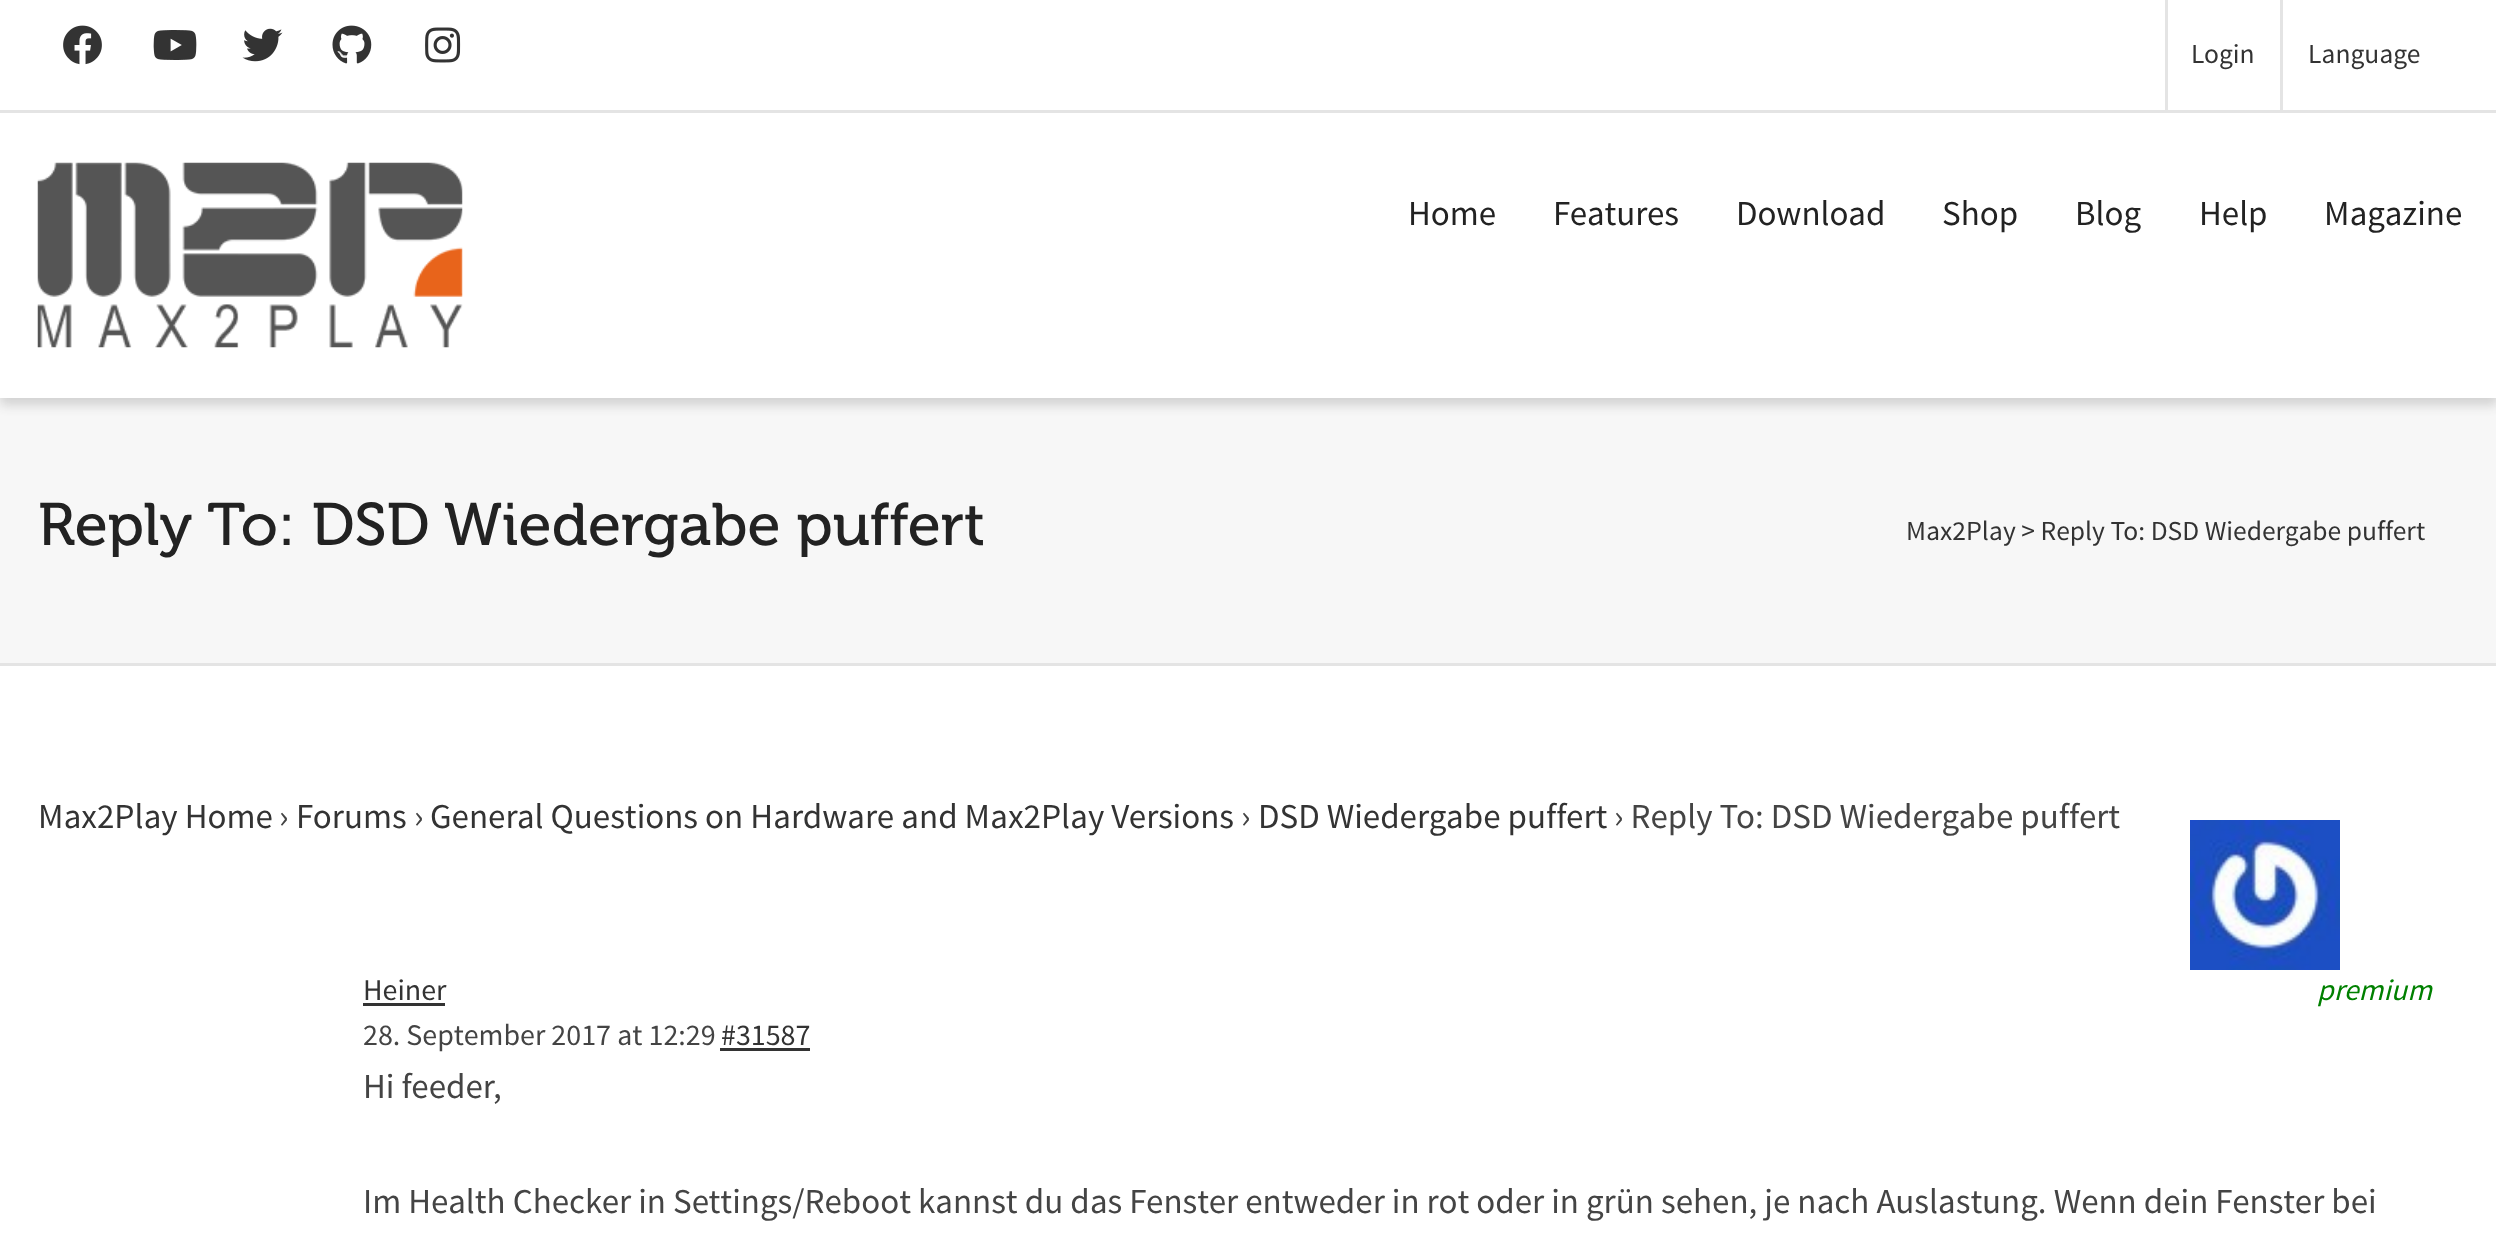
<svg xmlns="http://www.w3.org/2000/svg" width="2496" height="1248">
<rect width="100%" height="100%" fill="#fff"/>
<rect y="398" width="2496" height="265" fill="#f7f7f7"/>
<rect y="8" width="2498" height="397" fill="#0000001a" filter="blur(6px)"/>
<rect y="8" width="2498" height="397" fill="#0000000d" filter="blur(6px)"/>
<rect width="2496" height="398" fill="#fff"/>
<rect y="110" width="2496" height="3" fill="#e4e4e4"/>
<image x="63" y="25" width="39" height="40" href="media/1.png"/>
<image x="153" y="30" width="44" height="30" href="media/2.png"/>
<image x="242" y="28" width="41" height="34" href="media/3.png"/>
<image x="332" y="25" width="40" height="39" href="media/4.png"/>
<image x="425" y="27" width="36" height="36" href="media/5.png"/>
<rect x="2165" width="3" height="110" fill="#e4e4e4"/>
<text x="2191" y="63" style="font-family:Source Sans Pro;font-size:27.5px;fill:#333">Login</text>
<rect x="2280" width="3" height="110" fill="#e4e4e4"/>
<text x="2308" y="63" style="font-family:Source Sans Pro;font-size:27.5px;fill:#333">Language</text>
<image x="37" y="162" width="426" height="186" href="media/6.png"/>
<text x="1408" y="225" style="font-family:Source Sans Pro;font-size:35px;fill:#222">Home</text>
<text x="1553" y="225" style="font-family:Source Sans Pro;font-size:35px;fill:#222">Features</text>
<text x="1736" y="225" style="font-family:Source Sans Pro;font-size:35px;fill:#222">Download</text>
<text x="1942" y="225" style="font-family:Source Sans Pro;font-size:35px;fill:#222">Shop</text>
<text x="2075" y="225" style="font-family:Source Sans Pro;font-size:35px;fill:#222">Blog</text>
<text x="2199" y="225" style="font-family:Source Sans Pro;font-size:35px;fill:#222">Help</text>
<text x="2324" y="225" style="font-family:Source Sans Pro;font-size:35px;fill:#222">Magazine</text>
<rect y="663" width="2496" height="3" fill="#e4e4e4"/>
<text x="38" y="545" style="font-family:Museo;font-size:60px;fill:#222">Reply To: DSD Wiedergabe puffert</text>
<text x="1906" y="540" style="font-family:Source Sans Pro;font-size:27.5px;fill:#333">Max2Play &gt; Reply To: DSD Wiedergabe puffert</text>
<text x="38" y="828" style="font-family:Source Sans Pro;font-size:35px;fill:#333">Max2Play Home</text>
<text x="279" y="828" style="font-family:Source Sans Pro;font-size:35px;fill:#444">›</text>
<text x="296" y="828" style="font-family:Source Sans Pro;font-size:35px;fill:#333">Forums</text>
<text x="414" y="828" style="font-family:Source Sans Pro;font-size:35px;fill:#444">›</text>
<text x="430" y="828" style="font-family:Source Sans Pro;font-size:35px;fill:#333">General Questions on Hardware and Max2Play Versions</text>
<text x="1241" y="828" style="font-family:Source Sans Pro;font-size:35px;fill:#444">›</text>
<text x="1258" y="828" style="font-family:Source Sans Pro;font-size:35px;fill:#333">DSD Wiedergabe puffert</text>
<text x="1614" y="828" style="font-family:Source Sans Pro;font-size:35px;fill:#444">› Reply To: DSD Wiedergabe puffert</text>
<image x="2190" y="820" width="150" height="150" href="media/7.png"/>
<text x="363" y="1000" style="font-family:Source Sans Pro;font-size:30px;fill:#333">Heiner</text>
<rect x="363" y="1003" width="82" height="3" fill="#333"/>
<text x="2317" y="1000" style="font-family:Source Sans Pro;font-size:30px;font-style:italic;fill:#008000">premium</text>
<text x="363" y="1045" style="font-family:Source Sans Pro;font-size:30px;fill:#444">28. September 2017 at 12:29</text>
<text x="721" y="1045" style="font-family:Source Sans Pro;font-size:30px;fill:#333">#31587</text>
<rect x="720" y="1048" width="90" height="3" fill="#333"/>
<text x="363" y="1098" style="font-family:Source Sans Pro;font-size:35px;fill:#444">Hi feeder,</text>
<text x="363" y="1213" style="font-family:Source Sans Pro;font-size:35px;fill:#444">Im Health Checker in Settings/Reboot kannst du das Fenster entweder in rot oder in grün sehen, je nach Auslastung. Wenn dein Fenster bei</text>
</svg>
